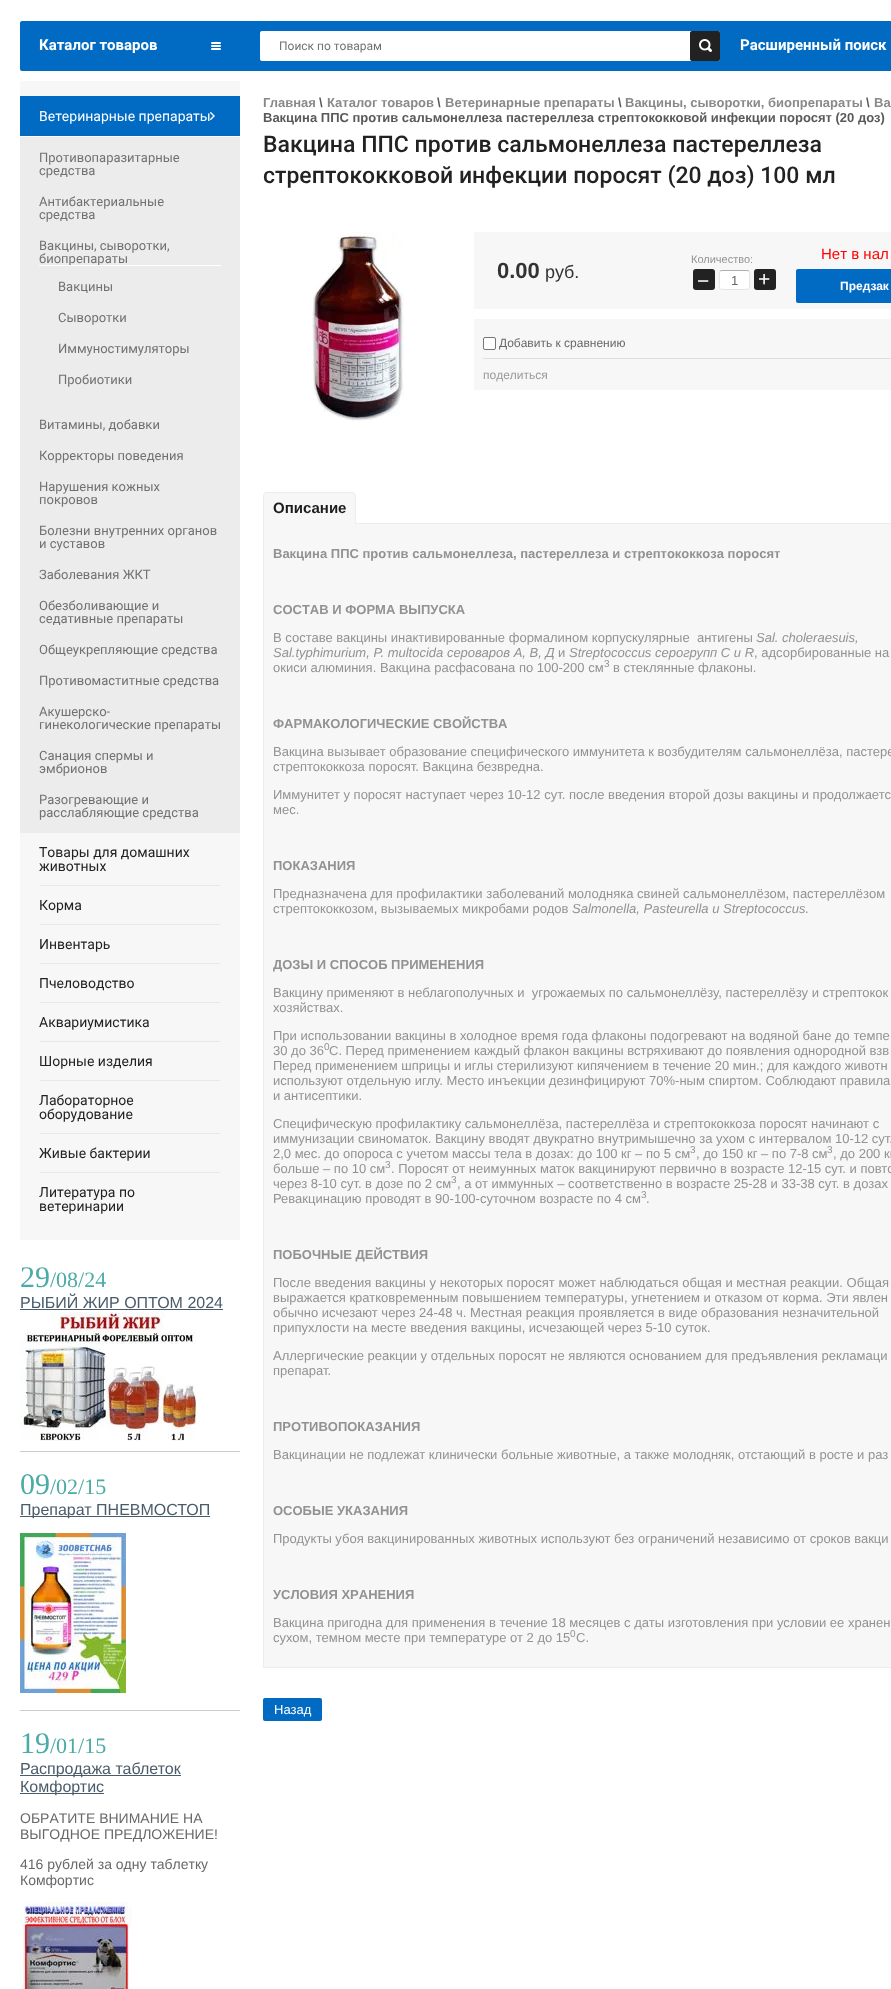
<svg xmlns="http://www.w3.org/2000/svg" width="891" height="1989">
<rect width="100%" height="100%" fill="#fff"/>
<rect x="20" y="21" width="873" height="50" rx="2" fill="#016bc3"/>
<image x="211" y="42" width="10" height="8" href="media/1.png"/>
<text x="39" y="50" style="font-family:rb;font-size:15px;font-weight:bold;fill:#fff">Каталог товаров</text>
<image x="260" y="31" width="460" height="30" href="media/2.png"/>
<text x="279" y="50" style="font-family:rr;font-size:12px;fill:#717171">Поиск по товарам</text>
<text x="740" y="50" style="font-family:rb;font-size:15px;font-weight:bold;fill:#fff">Расширенный поиск</text>
<rect x="20" y="81" width="220" height="1159" rx="2" fill="#f7f7f7"/>
<rect x="20" y="96" width="220" height="40" fill="#016bc3"/>
<image x="210" y="112" width="5" height="8" href="media/3.png"/>
<text x="39" y="121" style="font-family:rr;font-size:14px;fill:#fff">Ветеринарные препараты</text>
<rect x="20" y="137" width="220" height="696" fill="#ececec"/>
<rect x="20" y="136" width="220" height="1" fill="#fff"/>
<text x="39" y="162" style="font-family:rr;font-size:13px;fill:#717171">Противопаразитарные</text>
<text x="39" y="175" style="font-family:rr;font-size:13px;fill:#717171">средства</text>
<text x="39" y="206" style="font-family:rr;font-size:13px;fill:#717171">Антибактериальные</text>
<text x="39" y="219" style="font-family:rr;font-size:13px;fill:#717171">средства</text>
<text x="39" y="250" style="font-family:rr;font-size:13px;fill:#717171">Вакцины, сыворотки,</text>
<text x="39" y="263" style="font-family:rr;font-size:13px;fill:#717171">биопрепараты</text>
<rect x="39" y="265" width="182" height="1" fill="#fff"/>
<text x="58" y="291" style="font-family:rr;font-size:13px;fill:#717171">Вакцины</text>
<text x="58" y="322" style="font-family:rr;font-size:13px;fill:#717171">Сыворотки</text>
<text x="58" y="353" style="font-family:rr;font-size:13px;fill:#717171">Иммуностимуляторы</text>
<text x="58" y="384" style="font-family:rr;font-size:13px;fill:#717171">Пробиотики</text>
<text x="39" y="429" style="font-family:rr;font-size:13px;fill:#717171">Витамины, добавки</text>
<text x="39" y="460" style="font-family:rr;font-size:13px;fill:#717171">Корректоры поведения</text>
<text x="39" y="491" style="font-family:rr;font-size:13px;fill:#717171">Нарушения кожных</text>
<text x="39" y="504" style="font-family:rr;font-size:13px;fill:#717171">покровов</text>
<text x="39" y="535" style="font-family:rr;font-size:13px;fill:#717171">Болезни внутренних органов</text>
<text x="39" y="548" style="font-family:rr;font-size:13px;fill:#717171">и суставов</text>
<text x="39" y="579" style="font-family:rr;font-size:13px;fill:#717171">Заболевания ЖКТ</text>
<text x="39" y="610" style="font-family:rr;font-size:13px;fill:#717171">Обезболивающие и</text>
<text x="39" y="623" style="font-family:rr;font-size:13px;fill:#717171">седативные препараты</text>
<text x="39" y="654" style="font-family:rr;font-size:13px;fill:#717171">Общеукрепляющие средства</text>
<text x="39" y="685" style="font-family:rr;font-size:13px;fill:#717171">Противомаститные средства</text>
<text x="39" y="716" style="font-family:rr;font-size:13px;fill:#717171">Акушерско-</text>
<text x="39" y="729" style="font-family:rr;font-size:13px;fill:#717171">гинекологические препараты</text>
<text x="39" y="760" style="font-family:rr;font-size:13px;fill:#717171">Санация спермы и</text>
<text x="39" y="773" style="font-family:rr;font-size:13px;fill:#717171">эмбрионов</text>
<text x="39" y="804" style="font-family:rr;font-size:13px;fill:#717171">Разогревающие и</text>
<text x="39" y="817" style="font-family:rr;font-size:13px;fill:#717171">расслабляющие средства</text>
<text x="39" y="857" style="font-family:rr;font-size:14px;fill:#222">Товары для домашних</text>
<text x="39" y="871" style="font-family:rr;font-size:14px;fill:#222">животных</text>
<rect x="40" y="885" width="180" height="1" fill="#e8e8e8"/>
<text x="39" y="910" style="font-family:rr;font-size:14px;fill:#222">Корма</text>
<rect x="40" y="924" width="180" height="1" fill="#e8e8e8"/>
<text x="39" y="949" style="font-family:rr;font-size:14px;fill:#222">Инвентарь</text>
<rect x="40" y="963" width="180" height="1" fill="#e8e8e8"/>
<text x="39" y="988" style="font-family:rr;font-size:14px;fill:#222">Пчеловодство</text>
<rect x="40" y="1002" width="180" height="1" fill="#e8e8e8"/>
<text x="39" y="1027" style="font-family:rr;font-size:14px;fill:#222">Аквариумистика</text>
<rect x="40" y="1041" width="180" height="1" fill="#e8e8e8"/>
<text x="39" y="1066" style="font-family:rr;font-size:14px;fill:#222">Шорные изделия</text>
<rect x="40" y="1080" width="180" height="1" fill="#e8e8e8"/>
<text x="39" y="1105" style="font-family:rr;font-size:14px;fill:#222">Лабораторное</text>
<text x="39" y="1119" style="font-family:rr;font-size:14px;fill:#222">оборудование</text>
<rect x="40" y="1133" width="180" height="1" fill="#e8e8e8"/>
<text x="39" y="1158" style="font-family:rr;font-size:14px;fill:#222">Живые бактерии</text>
<rect x="40" y="1172" width="180" height="1" fill="#e8e8e8"/>
<text x="39" y="1197" style="font-family:rr;font-size:14px;fill:#222">Литература по</text>
<text x="39" y="1211" style="font-family:rr;font-size:14px;fill:#222">ветеринарии</text>
<rect x="20" y="1451" width="220" height="1" fill="#ccc"/>
<text x="20" y="1287" style="font-family:Liberation Serif;font-size:30px;fill:#4baba6">29</text>
<text x="50" y="1287" style="font-family:Liberation Serif;font-size:22px;fill:#4baba6">/08/24</text>
<text x="20" y="1308" style="font-family:Liberation Sans;font-size:16px;fill:#4a5b6a">РЫБИЙ ЖИР ОПТОМ 2024</text>
<rect x="20" y="1309" width="203" height="1" fill="#4a5b6a"/>
<image x="20" y="1312" width="178" height="129" href="media/4.png"/>
<rect x="20" y="1710" width="220" height="1" fill="#ccc"/>
<text x="20" y="1494" style="font-family:Liberation Serif;font-size:30px;fill:#4baba6">09</text>
<text x="50" y="1494" style="font-family:Liberation Serif;font-size:22px;fill:#4baba6">/02/15</text>
<rect x="20" y="1516" width="190" height="1" fill="#4a5b6a"/>
<text x="20" y="1515" style="font-family:Liberation Sans;font-size:16px;fill:#4a5b6a">Препарат ПНЕВМОСТОП</text>
<image x="20" y="1533" width="106" height="160" href="media/5.png"/>
<text x="20" y="1753" style="font-family:Liberation Serif;font-size:30px;fill:#4baba6">19</text>
<text x="50" y="1753" style="font-family:Liberation Serif;font-size:22px;fill:#4baba6">/01/15</text>
<rect x="20" y="1775" width="161" height="1" fill="#4a5b6a"/>
<text x="20" y="1774" style="font-family:Liberation Sans;font-size:16px;fill:#4a5b6a">Распродажа таблеток</text>
<rect x="20" y="1793" width="84" height="1" fill="#4a5b6a"/>
<text x="20" y="1792" style="font-family:Liberation Sans;font-size:16px;fill:#4a5b6a">Комфортис</text>
<text x="20" y="1823" style="font-family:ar;font-size:14px;fill:#686868">ОБРАТИТЕ ВНИМАНИЕ НА</text>
<text x="20" y="1839" style="font-family:ar;font-size:14px;fill:#686868">ВЫГОДНОЕ ПРЕДЛОЖЕНИЕ!</text>
<text x="20" y="1869" style="font-family:ar;font-size:14px;fill:#686868">416 рублей за одну таблетку</text>
<text x="20" y="1885" style="font-family:ar;font-size:14px;fill:#686868">Комфортис</text>
<image x="20" y="1902" width="112" height="87" href="media/6.png"/>
<text x="263" y="107" style="font-family:Liberation Sans;font-size:13px;font-weight:bold;fill:#898989">Главная</text>
<text x="319" y="107" style="font-family:Liberation Sans;font-size:13px;font-weight:bold;fill:#595959">\</text>
<text x="327" y="107" style="font-family:Liberation Sans;font-size:13px;font-weight:bold;fill:#898989">Каталог товаров</text>
<text x="437" y="107" style="font-family:Liberation Sans;font-size:13px;font-weight:bold;fill:#595959">\</text>
<text x="445" y="107" style="font-family:Liberation Sans;font-size:13px;font-weight:bold;fill:#898989">Ветеринарные препараты</text>
<text x="618" y="107" style="font-family:Liberation Sans;font-size:13px;font-weight:bold;fill:#595959">\</text>
<text x="625" y="107" style="font-family:Liberation Sans;font-size:13px;font-weight:bold;fill:#898989">Вакцины, сыворотки, биопрепараты</text>
<text x="866" y="107" style="font-family:Liberation Sans;font-size:13px;font-weight:bold;fill:#595959">\</text>
<text x="874" y="107" style="font-family:Liberation Sans;font-size:13px;font-weight:bold;fill:#898989">Ва</text>
<text x="263" y="122" style="font-family:Liberation Sans;font-size:13px;font-weight:bold;fill:#595959">Вакцина ППС против сальмонеллеза пастереллеза стрептококковой инфекции поросят (20 доз)</text>
<text x="263" y="152" style="font-family:Roboto;font-size:23px;font-weight:500;fill:#222">Вакцина ППС против сальмонеллеза пастереллеза</text>
<text x="263" y="183" style="font-family:Roboto;font-size:23px;font-weight:500;fill:#222">стрептококковой инфекции поросят (20 доз) 100 мл</text>
<image x="312" y="232" width="92" height="189" href="media/7.png"/>
<rect x="474" y="232" width="417" height="77" fill="#f7f7f7"/>
<text x="497" y="278" style="font-family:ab;font-size:22px;font-weight:bold;fill:#333">0.00</text>
<text x="545" y="278" style="font-family:ar;font-size:18px;fill:#333">руб.</text>
<text x="691" y="263" style="font-family:Liberation Sans;font-size:11px;fill:#929292">Количество:</text>
<rect x="693" y="269" width="22" height="21" rx="3" fill="#222"/>
<text x="697" y="288" style="font-family:Liberation Sans;font-size:21px;fill:#fff">−</text>
<rect x="719" y="270" width="31" height="20" rx="3" fill="#fff"/>
<path d="M720 271c.5 0 1.5-.5 2-.5h25c.5 0 1.5 .5 2 .5" fill="none" stroke="#acafb5"/>
<path d="M749 271c1 1.5 .5 7 .5 9c0 9 2 9.5-6.5 9.5h-17c-8.5 0-6.5-.5-6.5-9.5c0-2-.5-7.5 .5-9" fill="none" stroke="#e3e4eb"/>
<text x="731" y="285" style="font-family:ar;font-size:13px;fill:#686868">1</text>
<rect x="754" y="269" width="22" height="21" rx="3" fill="#222"/>
<text x="758" y="286" style="font-family:Liberation Sans;font-size:21px;fill:#fff">+</text>
<text x="821" y="259" style="font-family:ar;font-size:15px;fill:#f00">Нет в нал</text>
<rect x="796" y="269" width="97" height="34" rx="2" fill="#016bc3"/>
<text x="840" y="290" style="font-family:Liberation Sans;font-size:12px;font-weight:bold;fill:#fff">Предзак</text>
<rect x="474" y="319" width="417" height="71" fill="#f7f7f7"/>
<rect x="483" y="358" width="408" height="1" fill="#dedede"/>
<rect x="483.5" y="337.5" width="12" height="12" rx="1.5" fill="#fff" stroke="#767676"/>
<text x="499" y="347" style="font-family:ar;font-size:12px;fill:#686868">Добавить к сравнению</text>
<text x="483" y="379" style="font-family:ar;font-size:12px;fill:#999">поделиться</text>
<rect x="263.5" y="523.5" width="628" height="1144" fill="#f7f7f7" stroke="#ededed"/>
<path d="M267 492h85c2 0 4 2 4 4v28h-93v-28c0-2 2-4 4-4z" fill="#f7f7f7"/>
<path d="M267 492h85c2 0 4 2 4 4v28h-93v-28c0-2 2-4 4-4zm0 1h85c2 0 3 1 3 3v28h-91v-28c0-2 1-3 3-3z" fill="#ededed" fill-rule="evenodd"/>
<text x="273" y="513" style="font-family:Liberation Sans;font-size:15px;font-weight:bold;fill:#1c1c1c">Описание</text>
<text x="273" y="558" style="font-family:ab;font-size:13px;font-weight:bold;fill:#929292">Вакцина ППС против сальмонеллеза, пастереллеза и стрептококкоза поросят</text>
<text x="273" y="614" style="font-family:ab;font-size:13px;font-weight:bold;fill:#929292">СОСТАВ И ФОРМА ВЫПУСКА</text>
<text x="273" y="642" style="font-family:Liberation Sans;font-size:13px;fill:#929292" xml:space="preserve">В составе вакцины инактивированные формалином корпускулярные  антигены</text>
<text x="756" y="642" style="font-family:Liberation Sans;font-size:13px;font-style:italic;fill:#929292">Sal. choleraesuis,</text>
<text x="273" y="657" style="font-family:Liberation Sans;font-size:13px;font-style:italic;fill:#929292">Sal.typhimurium, P. multocida сероваров А, В, Д</text>
<text x="558" y="657" style="font-family:Liberation Sans;font-size:13px;fill:#929292">и</text>
<text x="569" y="657" style="font-family:Liberation Sans;font-size:13px;font-style:italic;fill:#929292">Streptococcus серогрупп C и R</text>
<text x="754" y="657" style="font-family:Liberation Sans;font-size:13px;fill:#929292">, адсорбированные на</text>
<text x="273" y="672" style="font-family:Liberation Sans;font-size:13px;fill:#929292">окиси алюминия. Вакцина расфасована по 100-200 см</text>
<text x="604" y="667" style="font-family:Liberation Sans;font-size:10px;fill:#929292">3</text>
<text x="613" y="672" style="font-family:Liberation Sans;font-size:13px;fill:#929292">в стеклянные флаконы.</text>
<text x="273" y="728" style="font-family:ab;font-size:13px;font-weight:bold;fill:#929292">ФАРМАКОЛОГИЧЕСКИЕ СВОЙСТВА</text>
<text x="273" y="756" style="font-family:Liberation Sans;font-size:13px;fill:#929292">Вакцина вызывает образование специфического иммунитета к возбудителям сальмонеллёза, пастере</text>
<text x="273" y="771" style="font-family:Liberation Sans;font-size:13px;fill:#929292">стрептококкоза поросят. Вакцина безвредна.</text>
<text x="273" y="799" style="font-family:Liberation Sans;font-size:13px;fill:#929292">Иммунитет у поросят наступает через 10-12 сут. после введения второй дозы вакцины и продолжаетс</text>
<text x="273" y="814" style="font-family:Liberation Sans;font-size:13px;fill:#929292">мес.</text>
<text x="273" y="870" style="font-family:ab;font-size:13px;font-weight:bold;fill:#929292">ПОКАЗАНИЯ</text>
<text x="273" y="898" style="font-family:Liberation Sans;font-size:13px;fill:#929292">Предназначена для профилактики заболеваний молодняка свиней сальмонеллёзом, пастереллёзом</text>
<text x="273" y="913" style="font-family:Liberation Sans;font-size:13px;fill:#929292">стрептококкозом, вызываемых микробами родов</text>
<text x="572" y="913" style="font-family:Liberation Sans;font-size:13px;font-style:italic;fill:#929292">Salmonella, Pasteurella и Streptococcus</text>
<text x="805" y="913" style="font-family:Liberation Sans;font-size:13px;fill:#929292">.</text>
<text x="273" y="969" style="font-family:ab;font-size:13px;font-weight:bold;fill:#929292">ДОЗЫ И СПОСОБ ПРИМЕНЕНИЯ</text>
<text x="273" y="997" style="font-family:Liberation Sans;font-size:13px;fill:#929292" xml:space="preserve">Вакцину применяют в неблагополучных и  угрожаемых по сальмонеллёзу, пастереллёзу и стрептокок</text>
<text x="273" y="1012" style="font-family:Liberation Sans;font-size:13px;fill:#929292">хозяйствах.</text>
<text x="273" y="1040" style="font-family:Liberation Sans;font-size:13px;fill:#929292">При использовании вакцины в холодное время года флаконы подогревают на водяной бане до темпе</text>
<text x="273" y="1055" style="font-family:Liberation Sans;font-size:13px;fill:#929292">30 до 36</text>
<text x="324" y="1050" style="font-family:Liberation Sans;font-size:10px;fill:#929292">0</text>
<text x="329" y="1055" style="font-family:Liberation Sans;font-size:13px;fill:#929292">С. Перед применением каждый флакон вакцины встряхивают до появления однородной взв</text>
<text x="273" y="1070" style="font-family:Liberation Sans;font-size:13px;fill:#929292">Перед применением шприцы и иглы стерилизуют кипячением в течение 20 мин.; для каждого животн</text>
<text x="273" y="1085" style="font-family:Liberation Sans;font-size:13px;fill:#929292">используют отдельную иглу. Место инъекции дезинфицируют 70%-ным спиртом. Соблюдают правила</text>
<text x="273" y="1100" style="font-family:Liberation Sans;font-size:13px;fill:#929292">и антисептики.</text>
<text x="273" y="1128" style="font-family:Liberation Sans;font-size:13px;fill:#929292">Специфическую профилактику сальмонеллёза, пастереллёза и стрептококкоза поросят начинают с</text>
<text x="273" y="1143" style="font-family:Liberation Sans;font-size:13px;fill:#929292">иммунизации свиноматок. Вакцину вводят двукратно внутримышечно за ухом с интервалом 10-12 сут.</text>
<text x="273" y="1158" style="font-family:Liberation Sans;font-size:13px;fill:#929292">2,0 мес. до опороса с учетом массы тела в дозах: до 100 кг – по 5 см</text>
<text x="690" y="1153" style="font-family:Liberation Sans;font-size:10px;fill:#929292">3</text>
<text x="696" y="1158" style="font-family:Liberation Sans;font-size:13px;fill:#929292">, до 150 кг – по 7-8 см</text>
<text x="827" y="1153" style="font-family:Liberation Sans;font-size:10px;fill:#929292">3</text>
<text x="833" y="1158" style="font-family:Liberation Sans;font-size:13px;fill:#929292">, до 200 кг</text>
<text x="273" y="1173" style="font-family:Liberation Sans;font-size:13px;fill:#929292">больше – по 10 см</text>
<text x="385" y="1168" style="font-family:Liberation Sans;font-size:10px;fill:#929292">3</text>
<text x="391" y="1173" style="font-family:Liberation Sans;font-size:13px;fill:#929292">. Поросят от неимунных маток вакцинируют первично в возрасте 12-15 сут. и повто</text>
<text x="273" y="1188" style="font-family:Liberation Sans;font-size:13px;fill:#929292">через 8-10 сут. в дозе по 2 см</text>
<text x="451" y="1183" style="font-family:Liberation Sans;font-size:10px;fill:#929292">3</text>
<text x="457" y="1188" style="font-family:Liberation Sans;font-size:13px;fill:#929292">, а от иммунных – соответственно в возрасте 25-28 и 33-38 сут. в дозах</text>
<text x="273" y="1203" style="font-family:Liberation Sans;font-size:13px;fill:#929292">Ревакцинацию проводят в 90-100-суточном возрасте по 4 см</text>
<text x="641" y="1198" style="font-family:Liberation Sans;font-size:10px;fill:#929292">3</text>
<text x="646" y="1203" style="font-family:Liberation Sans;font-size:13px;fill:#929292">.</text>
<text x="273" y="1259" style="font-family:ab;font-size:13px;font-weight:bold;fill:#929292">ПОБОЧНЫЕ ДЕЙСТВИЯ</text>
<text x="273" y="1287" style="font-family:Liberation Sans;font-size:13px;fill:#929292">После введения вакцины у некоторых поросят может наблюдаться общая и местная реакции. Общая</text>
<text x="273" y="1302" style="font-family:Liberation Sans;font-size:13px;fill:#929292">выражается кратковременным повышением температуры, угнетением и отказом от корма. Эти явлен</text>
<text x="273" y="1317" style="font-family:Liberation Sans;font-size:13px;fill:#929292">обычно исчезают через 24-48 ч. Местная реакция проявляется в виде образования незначительной</text>
<text x="273" y="1332" style="font-family:Liberation Sans;font-size:13px;fill:#929292">припухлости на месте введения вакцины, исчезающей через 5-10 суток.</text>
<text x="273" y="1360" style="font-family:Liberation Sans;font-size:13px;fill:#929292">Аллергические реакции у отдельных поросят не являются основанием для предъявления рекламаци</text>
<text x="273" y="1375" style="font-family:Liberation Sans;font-size:13px;fill:#929292">препарат.</text>
<text x="273" y="1431" style="font-family:ab;font-size:13px;font-weight:bold;fill:#929292">ПРОТИВОПОКАЗАНИЯ</text>
<text x="273" y="1459" style="font-family:Liberation Sans;font-size:13px;fill:#929292">Вакцинации не подлежат клинически больные животные, а также молодняк, отстающий в росте и раз</text>
<text x="273" y="1515" style="font-family:ab;font-size:13px;font-weight:bold;fill:#929292">ОСОБЫЕ УКАЗАНИЯ</text>
<text x="273" y="1543" style="font-family:Liberation Sans;font-size:13px;fill:#929292">Продукты убоя вакцинированных животных используют без ограничений независимо от сроков вакци</text>
<text x="273" y="1599" style="font-family:ab;font-size:13px;font-weight:bold;fill:#929292">УСЛОВИЯ ХРАНЕНИЯ</text>
<text x="273" y="1627" style="font-family:Liberation Sans;font-size:13px;fill:#929292">Вакцина пригодна для применения в течение 18 месяцев с даты изготовления при условии ее хранен</text>
<text x="273" y="1642" style="font-family:Liberation Sans;font-size:13px;fill:#929292">сухом, темном месте при температуре от 2 до 15</text>
<text x="570" y="1637" style="font-family:Liberation Sans;font-size:10px;fill:#929292">0</text>
<text x="576" y="1642" style="font-family:Liberation Sans;font-size:13px;fill:#929292">С.</text>
<rect x="263" y="1698" width="59" height="23" rx="2" fill="#016bc3"/>
<text x="274" y="1714" style="font-family:ar;font-size:13px;fill:#fff">Назад</text>
</svg>
